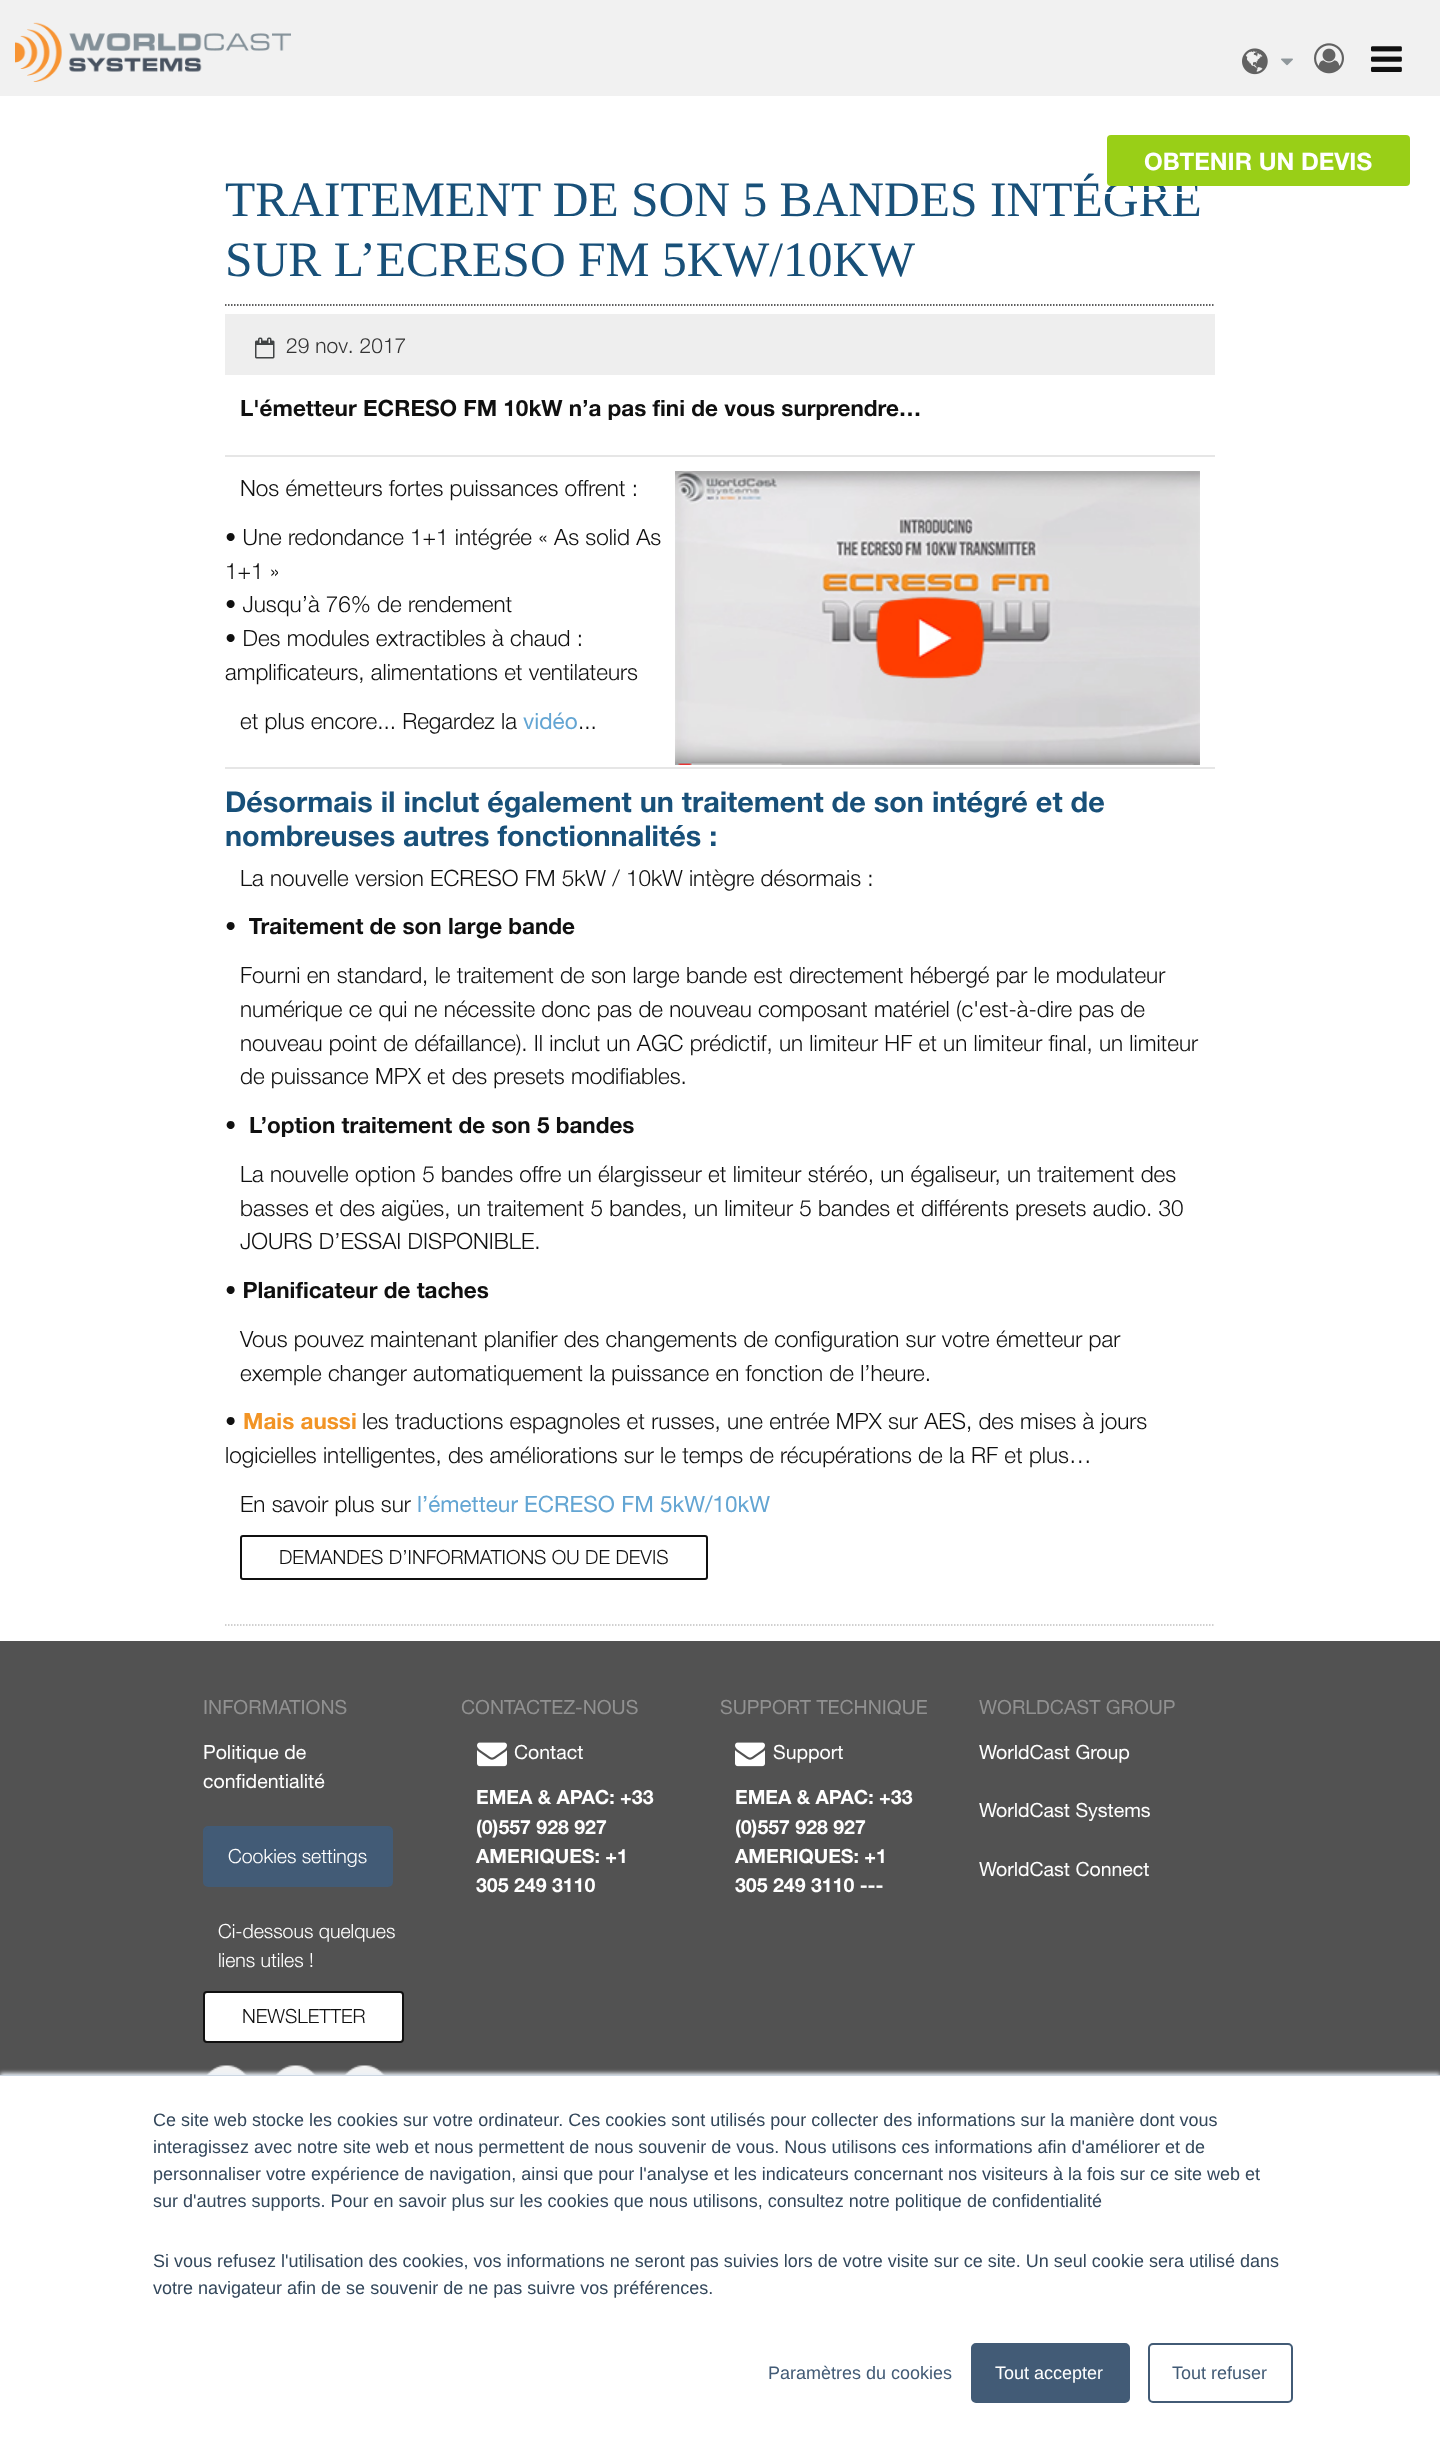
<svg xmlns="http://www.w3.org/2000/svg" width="1440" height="2442">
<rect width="100%" height="100%" fill="#fff"/>
<rect width="1440" height="96" fill="#f1f1f1"/>
<image x="15" y="22" width="276" height="60" href="media/1.png"/>
<image x="1242" y="48" width="26" height="27" href="media/2.png"/>
<image x="1281" y="58" width="12" height="8" href="media/3.png"/>
<image x="1314" y="43" width="30" height="31" href="media/4.png"/>
<image x="1371" y="46" width="31" height="26" href="media/5.png"/>
<text x="225" y="216" style="font-family:Liberation Serif;font-size:49.5px;fill:#185079">TRAITEMENT DE SON 5 BANDES INTÉGRÉ</text>
<rect x="1107" y="135" width="303" height="51" rx="4" fill="#99cf17"/>
<rect x="1101" y="129" width="316" height="64" rx="4" fill="none" stroke="#fff" stroke-width="2"/>
<text x="1144" y="170" style="font-family:'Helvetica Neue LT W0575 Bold';font-size:24px;font-weight:bold;fill:#fff">OBTENIR UN DEVIS</text>
<path d="M225 1625h990" fill="none" stroke="#c1c1c1" stroke-width="1.5" stroke-dasharray="1.5 1.5"/>
<path d="M225 305h990" fill="none" stroke="#282a2b" stroke-width="1.5" stroke-dasharray="1.5 1.5"/>
<text x="225" y="276" style="font-family:Liberation Serif;font-size:49.5px;fill:#185079">SUR L’ECRESO FM 5KW/10KW</text>
<rect x="225" y="314" width="990" height="61" fill="#eee"/>
<image x="255" y="337" width="20" height="22" href="media/6.png"/>
<text x="286" y="353" style="font-family:'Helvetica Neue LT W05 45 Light';font-size:21px;font-weight:300;fill:#333">29 nov. 2017</text>
<text x="240" y="416" style="font-family:'Helvetica Neue LT W0575 Bold';font-size:22.5px;font-weight:bold;fill:#101010">L'émetteur ECRESO FM 10kW n’a pas fini de vous surprendre…</text>
<rect x="225" y="455" width="990" height="2" fill="#e6e6e6"/>
<text x="240" y="496" style="font-family:'Helvetica Neue LT W05 45 Light';font-size:22.5px;font-weight:300;fill:#101010">Nos émetteurs fortes puissances offrent :</text>
<image x="675" y="471" width="525" height="294" href="media/7.png"/>
<text x="225" y="545" style="font-family:'Helvetica Neue LT W05 45 Light';font-size:22.5px;font-weight:300;fill:#101010">• Une redondance 1+1 intégrée « As solid As</text>
<text x="225" y="579" style="font-family:'Helvetica Neue LT W05 45 Light';font-size:22.5px;font-weight:300;fill:#101010">1+1 »</text>
<text x="225" y="612" style="font-family:'Helvetica Neue LT W05 45 Light';font-size:22.5px;font-weight:300;fill:#101010">• Jusqu’à 76% de rendement</text>
<text x="225" y="646" style="font-family:'Helvetica Neue LT W05 45 Light';font-size:22.5px;font-weight:300;fill:#101010">• Des modules extractibles à chaud :</text>
<text x="225" y="680" style="font-family:'Helvetica Neue LT W05 45 Light';font-size:22.5px;font-weight:300;fill:#101010">amplificateurs, alimentations et ventilateurs</text>
<text x="240" y="729" style="font-family:'Helvetica Neue LT W05 45 Light';font-size:22.5px;font-weight:300;fill:#101010">et plus encore... Regardez la</text>
<text x="523" y="729" style="font-family:'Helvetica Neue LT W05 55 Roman';font-size:22.5px;fill:#63a5d3">vidéo</text>
<text x="578" y="729" style="font-family:'Helvetica Neue LT W05 45 Light';font-size:22.5px;font-weight:300;fill:#101010">...</text>
<rect x="225" y="767" width="990" height="2" fill="#e6e6e6"/>
<text x="225" y="812" style="font-family:'Helvetica Neue LT W0575 Bold';font-size:28.8px;font-weight:bold;fill:#185079">Désormais il inclut également un traitement de son intégré et de</text>
<text x="225" y="846" style="font-family:'Helvetica Neue LT W0575 Bold';font-size:28.8px;font-weight:bold;fill:#185079">nombreuses autres fonctionnalités :</text>
<text x="240" y="886" style="font-family:'Helvetica Neue LT W05 45 Light';font-size:22.5px;font-weight:300;fill:#101010">La nouvelle version ECRESO FM 5kW / 10kW intègre désormais :</text>
<text x="225" y="934" style="font-family:'Helvetica Neue LT W0575 Bold';font-size:22.5px;font-weight:bold;fill:#101010" xml:space="preserve">•  Traitement de son large bande</text>
<text x="240" y="983" style="font-family:'Helvetica Neue LT W05 45 Light';font-size:22.5px;font-weight:300;fill:#101010">Fourni en standard, le traitement de son large bande est directement hébergé par le modulateur</text>
<text x="240" y="1017" style="font-family:'Helvetica Neue LT W05 45 Light';font-size:22.5px;font-weight:300;fill:#101010">numérique ce qui ne nécessite donc pas de nouveau composant matériel (c'est-à-dire pas de</text>
<text x="240" y="1051" style="font-family:'Helvetica Neue LT W05 45 Light';font-size:22.5px;font-weight:300;fill:#101010">nouveau point de défaillance). Il inclut un AGC prédictif, un limiteur HF et un limiteur final, un limiteur</text>
<text x="240" y="1084" style="font-family:'Helvetica Neue LT W05 45 Light';font-size:22.5px;font-weight:300;fill:#101010">de puissance MPX et des presets modifiables.</text>
<text x="225" y="1133" style="font-family:'Helvetica Neue LT W0575 Bold';font-size:22.5px;font-weight:bold;fill:#101010">•</text>
<text x="249" y="1133" style="font-family:'Helvetica Neue LT W0575 Bold';font-size:22.5px;font-weight:bold;fill:#101010">L’option traitement de son 5 bandes</text>
<text x="240" y="1182" style="font-family:'Helvetica Neue LT W05 45 Light';font-size:22.5px;font-weight:300;fill:#101010">La nouvelle option 5 bandes offre un élargisseur et limiteur stéréo, un égaliseur, un traitement des</text>
<text x="240" y="1216" style="font-family:'Helvetica Neue LT W05 45 Light';font-size:22.5px;font-weight:300;fill:#101010">basses et des aigües, un traitement 5 bandes, un limiteur 5 bandes et différents presets audio. 30</text>
<text x="240" y="1249" style="font-family:'Helvetica Neue LT W05 45 Light';font-size:22.5px;font-weight:300;fill:#101010">JOURS D’ESSAI DISPONIBLE.</text>
<text x="225" y="1298" style="font-family:'Helvetica Neue LT W0575 Bold';font-size:22.5px;font-weight:bold;fill:#101010">• Planificateur de taches</text>
<text x="240" y="1347" style="font-family:'Helvetica Neue LT W05 45 Light';font-size:22.5px;font-weight:300;fill:#101010">Vous pouvez maintenant planifier des changements de configuration sur votre émetteur par</text>
<text x="240" y="1381" style="font-family:'Helvetica Neue LT W05 45 Light';font-size:22.5px;font-weight:300;fill:#101010">exemple changer automatiquement la puissance en fonction de l’heure.</text>
<text x="225" y="1429" style="font-family:'Helvetica Neue LT W0575 Bold';font-size:22.5px;font-weight:bold;fill:#101010">•</text>
<text x="243" y="1429" style="font-family:'Helvetica Neue LT W0575 Bold';font-size:22.5px;font-weight:bold;fill:#f29425">Mais aussi</text>
<text x="362" y="1429" style="font-family:'Helvetica Neue LT W05 45 Light';font-size:22.5px;font-weight:300;fill:#101010">les traductions espagnoles et russes, une entrée MPX sur AES, des mises à jours</text>
<text x="225" y="1463" style="font-family:'Helvetica Neue LT W05 45 Light';font-size:22.5px;font-weight:300;fill:#101010">logicielles intelligentes, des améliorations sur le temps de récupérations de la RF et plus…</text>
<text x="240" y="1512" style="font-family:'Helvetica Neue LT W05 45 Light';font-size:22.5px;font-weight:300;fill:#101010">En savoir plus sur</text>
<text x="417" y="1512" style="font-family:'Helvetica Neue LT W05 55 Roman';font-size:22.5px;fill:#63a5d3">l’émetteur ECRESO FM 5kW/10kW</text>
<rect x="241" y="1536" width="466" height="43" rx="2" fill="none" stroke="#101010" stroke-width="2"/>
<text x="279" y="1564" style="font-family:'Helvetica Neue LT W05 45 Light';font-size:19.5px;font-weight:300;fill:#101010">DEMANDES D’INFORMATIONS OU DE DEVIS</text>
<rect y="1641" width="1440" height="434" fill="#525252"/>
<text x="203" y="1714" style="font-family:'Helvetica Neue LT W05 55 Roman';font-size:19.5px;fill:#919191">INFORMATIONS</text>
<text x="203" y="1759" style="font-family:'Helvetica Neue LT W05 55 Roman';font-size:19.5px;fill:#fff">Politique de</text>
<text x="203" y="1788" style="font-family:'Helvetica Neue LT W05 55 Roman';font-size:19.5px;fill:#fff">confidentialité</text>
<rect x="204" y="1827" width="188" height="59" rx="4" fill="#425b76" stroke="#425b76" stroke-width="2"/>
<text x="228" y="1863" style="font-family:'Helvetica Neue LT W05 45 Light';font-size:19.5px;font-weight:300;fill:#fff">Cookies settings</text>
<text x="218" y="1938" style="font-family:'Helvetica Neue LT W05 45 Light';font-size:19.5px;font-weight:300;fill:#fff">Ci-dessous quelques</text>
<text x="218" y="1967" style="font-family:'Helvetica Neue LT W05 45 Light';font-size:19.5px;font-weight:300;fill:#fff">liens utiles !</text>
<rect x="204" y="1992" width="199" height="50" rx="3" fill="#fff" stroke="#101010" stroke-width="2"/>
<text x="242" y="2023" style="font-family:'Helvetica Neue LT W05 45 Light';font-size:19.5px;font-weight:300;fill:#101010">NEWSLETTER</text>
<image x="206" y="2065" width="41" height="10" href="media/8.png"/>
<image x="275" y="2065" width="41" height="10" href="media/9.png"/>
<image x="344" y="2065" width="41" height="10" href="media/8.png"/>
<text x="461" y="1714" style="font-family:'Helvetica Neue LT W05 55 Roman';font-size:19.5px;fill:#919191">CONTACTEZ-NOUS</text>
<image x="477" y="1742" width="30" height="25" href="media/10.png"/>
<text x="514" y="1759" style="font-family:'Helvetica Neue LT W05 55 Roman';font-size:19.5px;fill:#fff">Contact</text>
<text x="476" y="1804" style="font-family:'Helvetica Neue LT W0575 Bold';font-size:19.5px;font-weight:bold;fill:#fff">EMEA &amp; APAC: +33</text>
<text x="476" y="1834" style="font-family:'Helvetica Neue LT W0575 Bold';font-size:19.5px;font-weight:bold;fill:#fff">(0)557 928 927</text>
<text x="476" y="1863" style="font-family:'Helvetica Neue LT W0575 Bold';font-size:19.5px;font-weight:bold;fill:#fff">AMERIQUES: +1</text>
<text x="476" y="1892" style="font-family:'Helvetica Neue LT W0575 Bold';font-size:19.5px;font-weight:bold;fill:#fff">305 249 3110</text>
<text x="720" y="1714" style="font-family:'Helvetica Neue LT W05 55 Roman';font-size:19.5px;fill:#919191">SUPPORT TECHNIQUE</text>
<image x="735" y="1742" width="30" height="25" href="media/10.png"/>
<text x="773" y="1759" style="font-family:'Helvetica Neue LT W05 55 Roman';font-size:19.5px;fill:#fff">Support</text>
<text x="735" y="1804" style="font-family:'Helvetica Neue LT W0575 Bold';font-size:19.5px;font-weight:bold;fill:#fff">EMEA &amp; APAC: +33</text>
<text x="735" y="1834" style="font-family:'Helvetica Neue LT W0575 Bold';font-size:19.5px;font-weight:bold;fill:#fff">(0)557 928 927</text>
<text x="735" y="1863" style="font-family:'Helvetica Neue LT W0575 Bold';font-size:19.5px;font-weight:bold;fill:#fff">AMERIQUES: +1</text>
<text x="735" y="1892" style="font-family:'Helvetica Neue LT W0575 Bold';font-size:19.5px;font-weight:bold;fill:#fff">305 249 3110 ---</text>
<text x="979" y="1714" style="font-family:'Helvetica Neue LT W05 55 Roman';font-size:19.5px;fill:#919191">WORLDCAST GROUP</text>
<text x="979" y="1759" style="font-family:'Helvetica Neue LT W05 55 Roman';font-size:19.5px;fill:#fff">WorldCast Group</text>
<text x="979" y="1817" style="font-family:'Helvetica Neue LT W05 55 Roman';font-size:19.5px;fill:#fff">WorldCast Systems</text>
<text x="979" y="1876" style="font-family:'Helvetica Neue LT W05 55 Roman';font-size:19.5px;fill:#fff">WorldCast Connect</text>
<rect y="2073" width="1440" height="368" fill="#eaf0f6" filter="blur(2px)"/>
<rect y="2075" width="1440" height="1" fill="#cbd6e2"/>
<rect y="2076" width="1440" height="366" fill="#fff"/>
<text x="153" y="2126" style="font-family:Liberation Sans;font-size:18px;fill:#33475b">Ce site web stocke les cookies sur votre ordinateur. Ces cookies sont utilisés pour collecter des informations sur la manière dont vous</text>
<text x="153" y="2153" style="font-family:Liberation Sans;font-size:18px;fill:#33475b">interagissez avec notre site web et nous permettent de nous souvenir de vous. Nous utilisons ces informations afin d'améliorer et de</text>
<text x="153" y="2180" style="font-family:Liberation Sans;font-size:18px;fill:#33475b">personnaliser votre expérience de navigation, ainsi que pour l'analyse et les indicateurs concernant nos visiteurs à la fois sur ce site web et</text>
<text x="153" y="2207" style="font-family:Liberation Sans;font-size:18px;fill:#33475b">sur d'autres supports. Pour en savoir plus sur les cookies que nous utilisons, consultez notre politique de confidentialité</text>
<text x="153" y="2267" style="font-family:Liberation Sans;font-size:18px;fill:#33475b">Si vous refusez l'utilisation des cookies, vos informations ne seront pas suivies lors de votre visite sur ce site. Un seul cookie sera utilisé dans</text>
<text x="153" y="2294" style="font-family:Liberation Sans;font-size:18px;fill:#33475b">votre navigateur afin de se souvenir de ne pas suivre vos préférences.</text>
<text x="768" y="2379" style="font-family:Liberation Sans;font-size:18px;fill:#425b76">Paramètres du cookies</text>
<rect x="972" y="2344" width="157" height="58" rx="4" fill="#425b76" stroke="#425b76" stroke-width="2"/>
<text x="995" y="2379" style="font-family:Liberation Sans;font-size:18px;fill:#fff">Tout accepter</text>
<rect x="1149" y="2344" width="143" height="58" rx="4" fill="none" stroke="#425b76" stroke-width="2"/>
<text x="1172" y="2379" style="font-family:Liberation Sans;font-size:18px;fill:#425b76">Tout refuser</text>
</svg>
